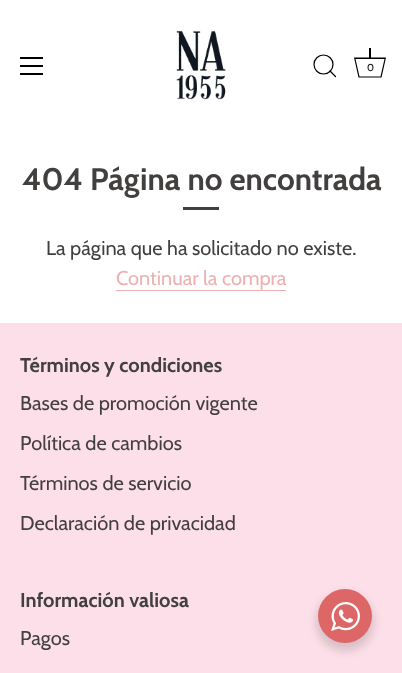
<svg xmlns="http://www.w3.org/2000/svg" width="402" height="673">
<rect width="100%" height="100%" fill="#fff"/>
<rect x="20" y="57" width="23" height="2" fill="#000"/>
<rect x="20" y="65" width="23" height="2" fill="#000"/>
<rect x="20" y="73" width="23" height="2" fill="#000"/>
<image x="176" y="30" width="50" height="70" href="media/1.png"/>
<circle cx="323.5" cy="64.5" r="9.5" fill="none" stroke="#000" stroke-width="1.2"/>
<path d="M335.5 76.5l-5.5-5.5" fill="none" stroke="#000" stroke-width="1.2" stroke-linecap="round" stroke-linejoin="round"/>
<path d="M384.5 59l-4 17.5h-21l-4-17.5h29m1.5-1.5h-32l4.5 20h23z" fill="#000"/>
<rect x="369" y="48" width="2" height="10" fill="#000"/>
<text x="367" y="71" style="font-family:Cabin;font-size:10px;fill:#000">0</text>
<text x="22" y="190" style="font-family:Cabin;font-size:31.25px;font-weight:bold;fill:#423f3f">404 Página no encontrada</text>
<rect x="183" y="207" width="36" height="3" fill="#413f3f"/>
<text x="46" y="255" style="font-family:Cabin;font-size:20px;fill:#423f3f">La página que ha solicitado no existe.</text>
<text x="116" y="285" style="font-family:Cabin;font-size:20px;fill:#ecb1b0">Continuar la compra</text>
<rect x="116" y="290" width="170" height="1" fill="#ecb1b0"/>
<rect y="323" width="402" height="350" fill="#fcdfe8"/>
<text x="20" y="372" style="font-family:Cabin;font-size:20px;font-weight:bold;fill:#423f3f">Términos y condiciones</text>
<text x="20" y="410" style="font-family:Cabin;font-size:20px;fill:#423f3f">Bases de promoción vigente</text>
<text x="20" y="450" style="font-family:Cabin;font-size:20px;fill:#423f3f">Política de cambios</text>
<text x="20" y="490" style="font-family:Cabin;font-size:20px;fill:#423f3f">Términos de servicio</text>
<text x="20" y="530" style="font-family:Cabin;font-size:20px;fill:#423f3f">Declaración de privacidad</text>
<text x="20" y="607" style="font-family:Cabin;font-size:20px;font-weight:bold;fill:#423f3f">Información valiosa</text>
<text x="20" y="645" style="font-family:Cabin;font-size:20px;fill:#423f3f">Pagos</text>
<rect x="316" y="593" width="58" height="58" rx="29" fill="#00000024" filter="blur(4px)"/>
<circle cx="345" cy="616" r="27" fill="#d66"/>
<image x="331" y="602" width="29" height="29" href="media/2.png"/>
</svg>
